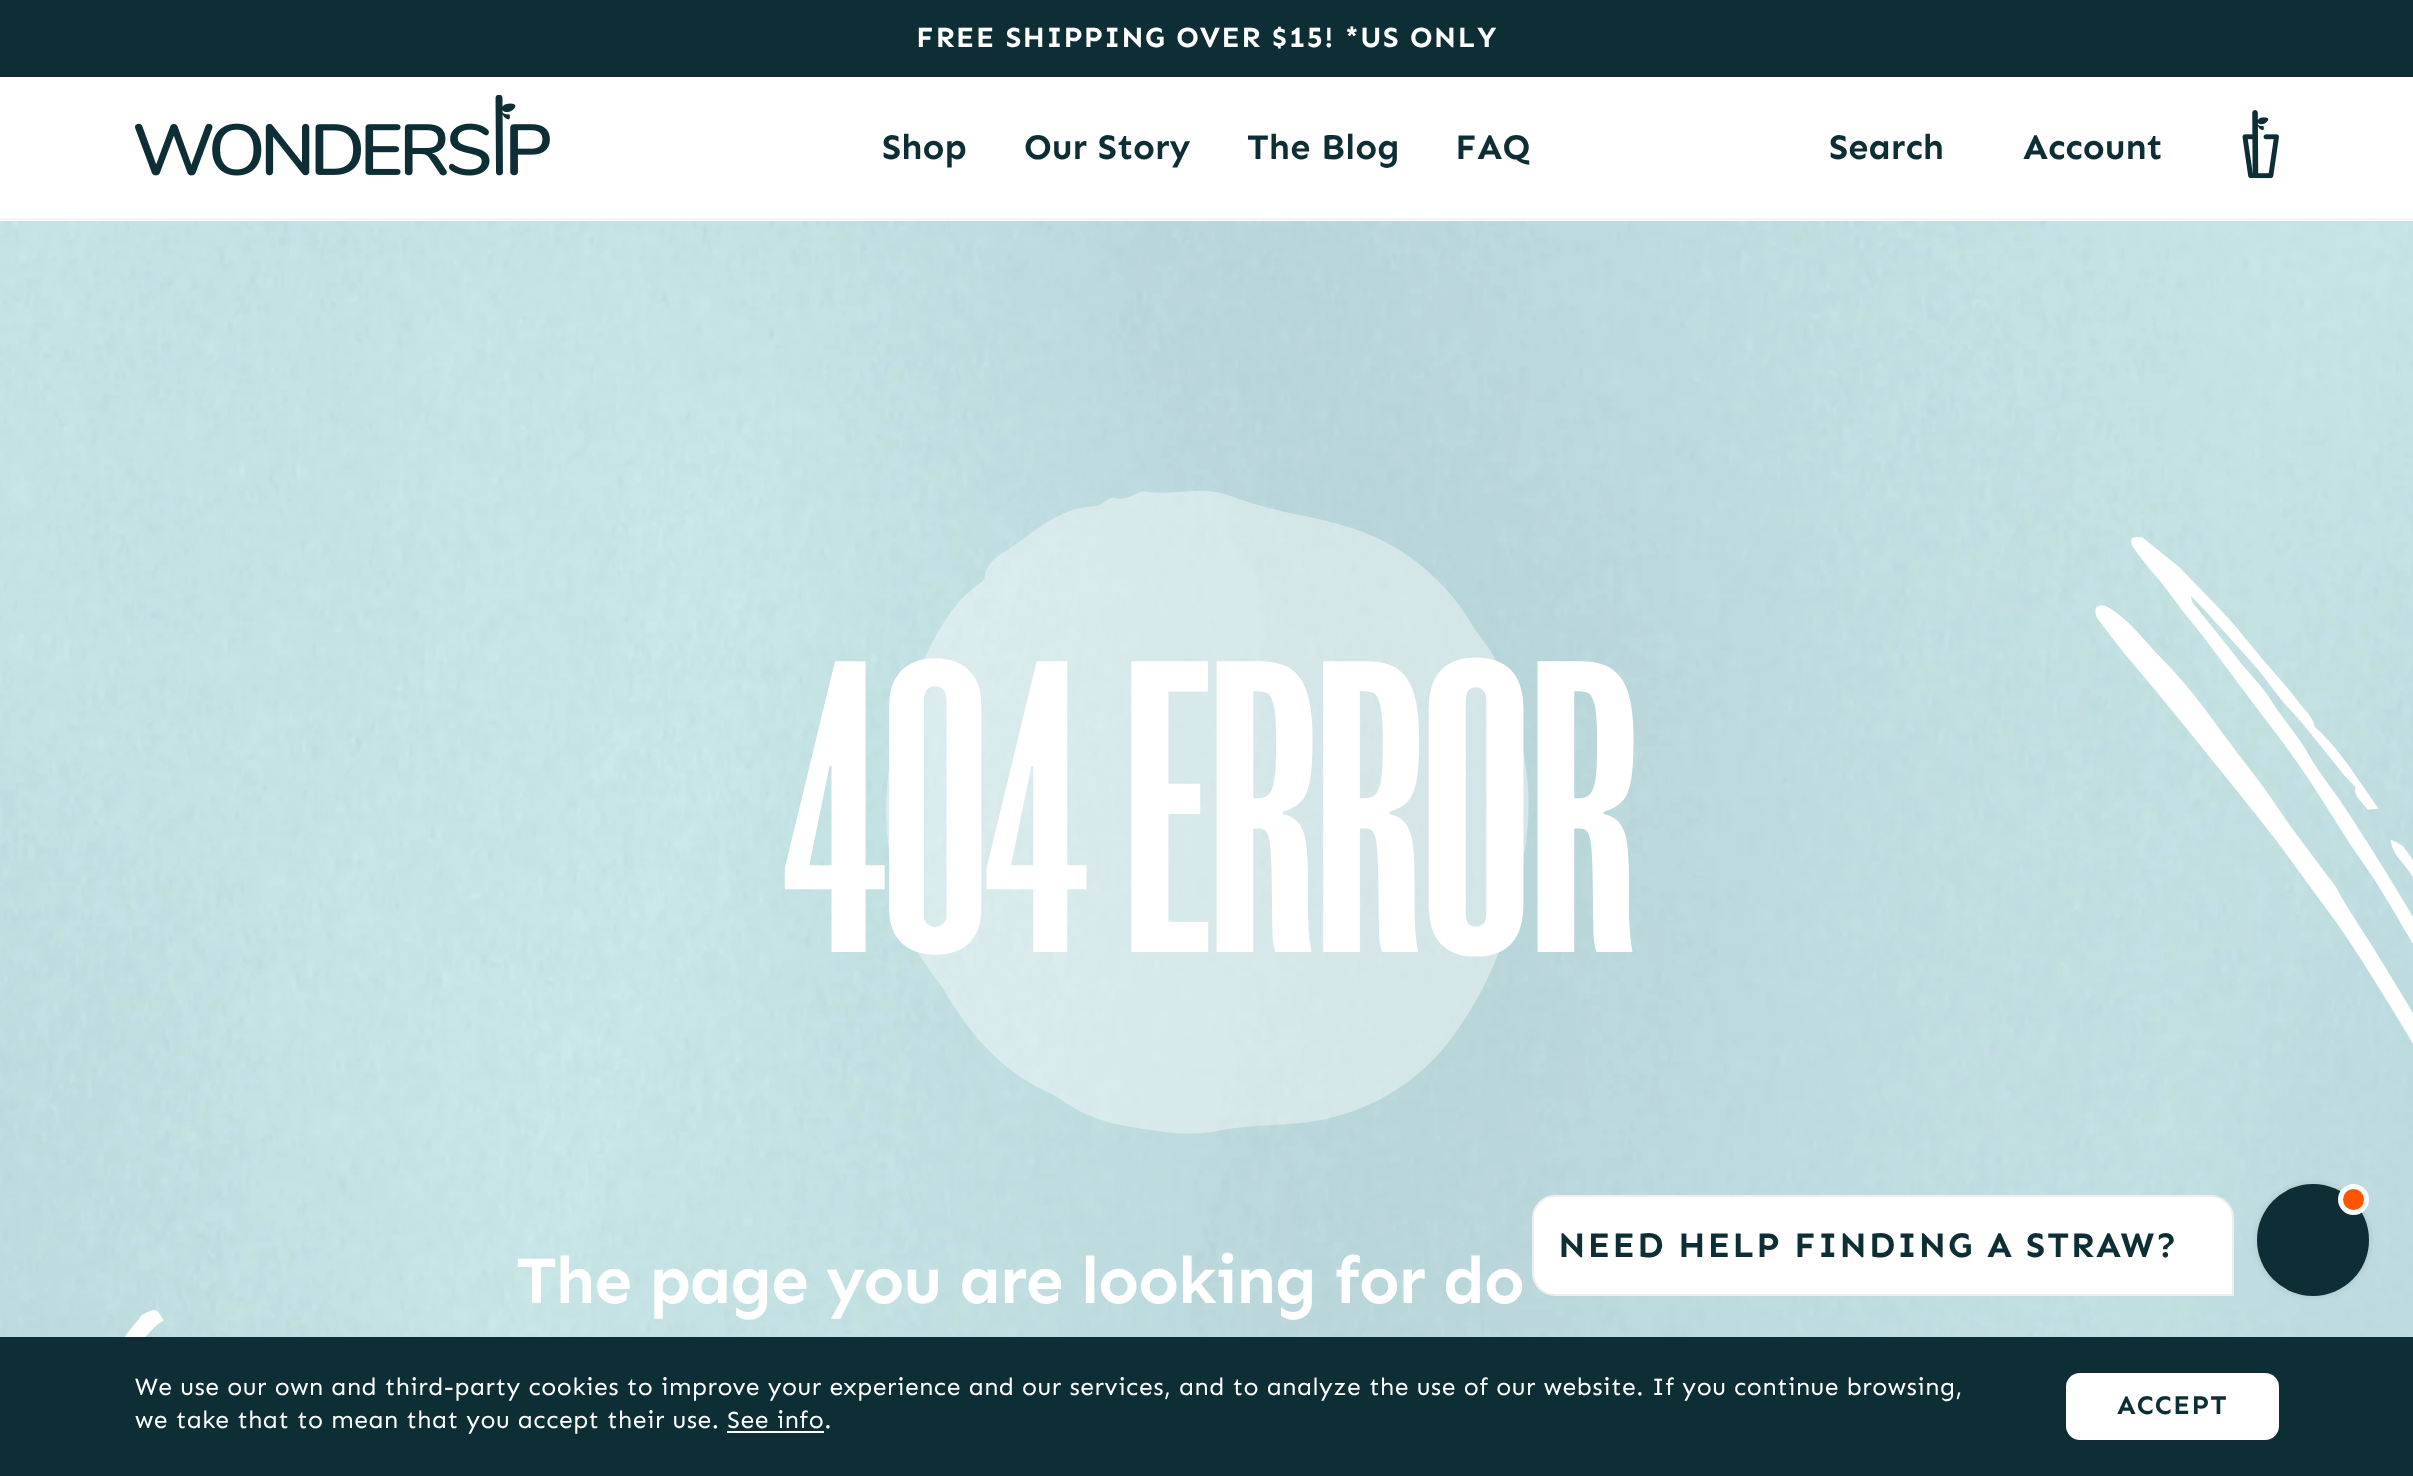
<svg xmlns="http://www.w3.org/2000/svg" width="2413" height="1476">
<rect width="100%" height="100%" fill="#fff"/>
<rect width="2413" height="77" fill="#0d2e35"/>
<text x="916" y="47" style="font-family:Sen;font-size:29.25px;font-weight:bold;letter-spacing:1.3px;fill:#fff">FREE SHIPPING OVER $15! *US ONLY</text>
<rect y="218" width="2413" height="2" fill="#f2f6f6"/>
<image x="135" y="95" width="415" height="81" href="media/1.png"/>
<text x="882" y="159" style="font-family:Sen;font-size:36px;font-weight:bold;fill:#0d2e35">Shop</text>
<text x="1024" y="159" style="font-family:Sen;font-size:36px;font-weight:bold;fill:#0d2e35">Our Story</text>
<text x="1247" y="159" style="font-family:Sen;font-size:36px;font-weight:bold;fill:#0d2e35">The Blog</text>
<text x="1455" y="159" style="font-family:Sen;font-size:36px;font-weight:bold;fill:#0d2e35">FAQ</text>
<text x="1829" y="159" style="font-family:Sen;font-size:36px;font-weight:bold;fill:#0d2e35">Search</text>
<text x="2023" y="159" style="font-family:Sen;font-size:36px;font-weight:bold;fill:#0d2e35">Account</text>
<image x="2242" y="110" width="37" height="69" href="media/2.png"/>
<image x="0" y="221" width="2413" height="1116" href="media/3.png"/>
<image x="886" y="491" width="643" height="643" href="media/4.png"/>
<text x="781" y="952" style="font-family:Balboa;font-size:382.5px;letter-spacing:-7.75px;fill:#fff">404 ERROR</text>
<text x="516" y="1303" style="font-family:Sen;font-size:67.5px;font-weight:bold;letter-spacing:-1.35px;fill:#fff">The page you are looking for do</text>
<image x="2095" y="537" width="318" height="507" href="media/5.png"/>
<image x="124" y="1310" width="40" height="27" href="media/6.png"/>
<rect y="1337" width="2413" height="139" fill="#0d2e35"/>
<text x="135" y="1395" style="font-family:Sen;font-size:24.75px;letter-spacing:0.49px;fill:#fff">We use our own and third-party cookies to improve your experience and our services, and to analyze the use of our website. If you continue browsing,</text>
<text x="135" y="1428" style="font-family:Sen;font-size:24.75px;letter-spacing:0.49px;fill:#fff">we take that to mean that you accept their use. See info.</text>
<rect x="727" y="1431" width="97" height="2" fill="#fff"/>
<rect x="2066" y="1373" width="213" height="67" rx="14" fill="#fff"/>
<text x="2117" y="1414" style="font-family:Sen;font-size:27px;font-weight:bold;letter-spacing:1.25px;fill:#0d2e35">ACCEPT</text>
<path d="M1555 1196h656c12 0 22 10 22 22v77h-678c-12 0-22-10-22-22v-55c0-12 10-22 22-22z" fill="#fff" stroke="#eee" stroke-width="2"/>
<text x="1558" y="1257" style="font-family:Sen;font-size:36px;font-weight:bold;letter-spacing:1.8px;fill:#0d2e35">NEED HELP FINDING A STRAW?</text>
<rect x="2257" y="1184" width="112" height="112" rx="56" fill="#0000001a" filter="blur(3.5px)"/>
<circle cx="2313" cy="1240" r="56" fill="#0d2e35"/>
<circle cx="2353.5" cy="1199.5" r="13" fill="#f50" stroke="#fff" stroke-width="5"/>
</svg>
